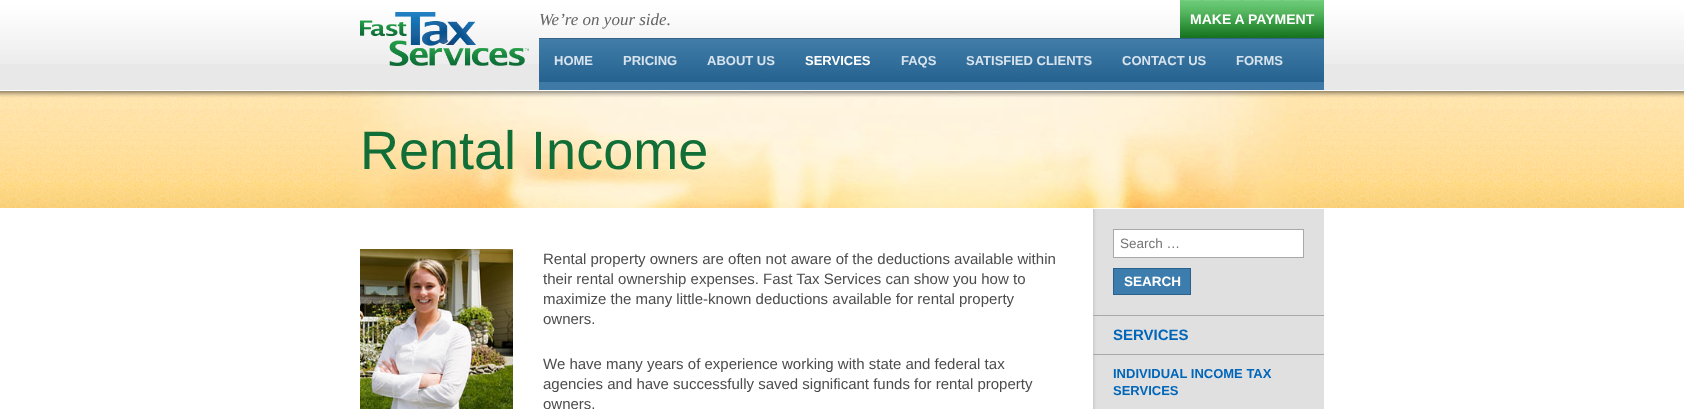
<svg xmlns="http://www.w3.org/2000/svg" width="1684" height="409">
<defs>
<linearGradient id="g1" gradientUnits="userSpaceOnUse" x1="932" y1="39" x2="932" y2="82"><stop offset="0" stop-color="#427da9"/><stop offset="1" stop-color="#25628f"/></linearGradient>
</defs>
<rect width="100%" height="100%" fill="#fff"/>
<rect y="64" width="1684" height="26" fill="#e8e8e8"/>
<image x="0" y="0" width="1684" height="64" href="media/1.png"/>
<image x="360" y="12" width="169" height="54" href="media/2.png"/>
<text x="539" y="25" style="font-family:Liberation Serif;font-size:17px;font-style:italic;fill:#646464">We’re on your side.</text>
<rect x="1180" y="36" width="144" height="2" fill="#177521"/>
<image x="1180" y="0" width="144" height="36" href="media/3.png"/>
<text x="1190" y="24" style="font-family:Liberation Sans;font-size:14px;font-weight:bold;fill:#fff">MAKE A PAYMENT</text>
<rect x="539" y="39" width="785" height="43" fill="url(#g1)"/>
<rect x="539" y="38" width="785" height="1" fill="#336183"/>
<rect x="539" y="82" width="785" height="8" fill="#3f79a6"/>
<text x="554" y="65" style="font-family:Liberation Sans;font-size:13px;font-weight:bold;fill:#d7e3ed">HOME</text>
<text x="623" y="65" style="font-family:Liberation Sans;font-size:13px;font-weight:bold;fill:#d7e3ed">PRICING</text>
<text x="707" y="65" style="font-family:Liberation Sans;font-size:13px;font-weight:bold;fill:#d7e3ed">ABOUT US</text>
<text x="805" y="65" style="font-family:Liberation Sans;font-size:13px;font-weight:bold;fill:#fff">SERVICES</text>
<text x="901" y="65" style="font-family:Liberation Sans;font-size:13px;font-weight:bold;fill:#d7e3ed">FAQS</text>
<text x="966" y="65" style="font-family:Liberation Sans;font-size:13px;font-weight:bold;fill:#d7e3ed">SATISFIED CLIENTS</text>
<text x="1122" y="65" style="font-family:Liberation Sans;font-size:13px;font-weight:bold;fill:#d7e3ed">CONTACT US</text>
<text x="1236" y="65" style="font-family:Liberation Sans;font-size:13px;font-weight:bold;fill:#d7e3ed">FORMS</text>
<image x="0" y="91" width="1684" height="117" href="media/4.png"/>
<image x="340" y="91" width="966" height="117" href="media/5.png"/>
<text x="360" y="169" style="font-family:Liberation Sans;font-size:54px;fill:#116e37">Rental Income</text>
<image x="360" y="249" width="153" height="160" href="media/6.png"/>
<text x="543" y="264" style="font-family:Liberation Sans;font-size:15px;fill:#4c4c4c">Rental property owners are often not aware of the deductions available within</text>
<text x="543" y="284" style="font-family:Liberation Sans;font-size:15px;fill:#4c4c4c">their rental ownership expenses. Fast Tax Services can show you how to</text>
<text x="543" y="304" style="font-family:Liberation Sans;font-size:15px;fill:#4c4c4c">maximize the many little-known deductions available for rental property</text>
<text x="543" y="324" style="font-family:Liberation Sans;font-size:15px;fill:#4c4c4c">owners.</text>
<text x="543" y="369" style="font-family:Liberation Sans;font-size:15px;fill:#4c4c4c">We have many years of experience working with state and federal tax</text>
<text x="543" y="389" style="font-family:Liberation Sans;font-size:15px;fill:#4c4c4c">agencies and have successfully saved significant funds for rental property</text>
<text x="543" y="409" style="font-family:Liberation Sans;font-size:15px;fill:#4c4c4c">owners.</text>
<image x="1093" y="209" width="231" height="200" href="media/7.png"/>
<rect x="1113.5" y="229.5" width="190" height="28" fill="#fff" stroke="#a8a8a8"/>
<text x="1120" y="248" style="font-family:Liberation Sans;font-size:13.5px;fill:#757575">Search …</text>
<rect x="1113.5" y="268.5" width="77" height="26" fill="#3d7dad" stroke="#2a628c"/>
<text x="1124" y="286" style="font-family:Liberation Sans;font-size:13.5px;font-weight:bold;fill:#fff">SEARCH</text>
<rect x="1093" y="315" width="231" height="1" fill="#a8a8a8"/>
<rect x="1093" y="354" width="231" height="1" fill="#a8a8a8"/>
<text x="1113" y="340" style="font-family:Liberation Sans;font-size:15px;font-weight:bold;fill:#0066ba">SERVICES</text>
<text x="1113" y="378" style="font-family:Liberation Sans;font-size:13px;font-weight:bold;fill:#0066ba">INDIVIDUAL INCOME TAX</text>
<text x="1113" y="395" style="font-family:Liberation Sans;font-size:13px;font-weight:bold;fill:#0066ba">SERVICES</text>
</svg>
